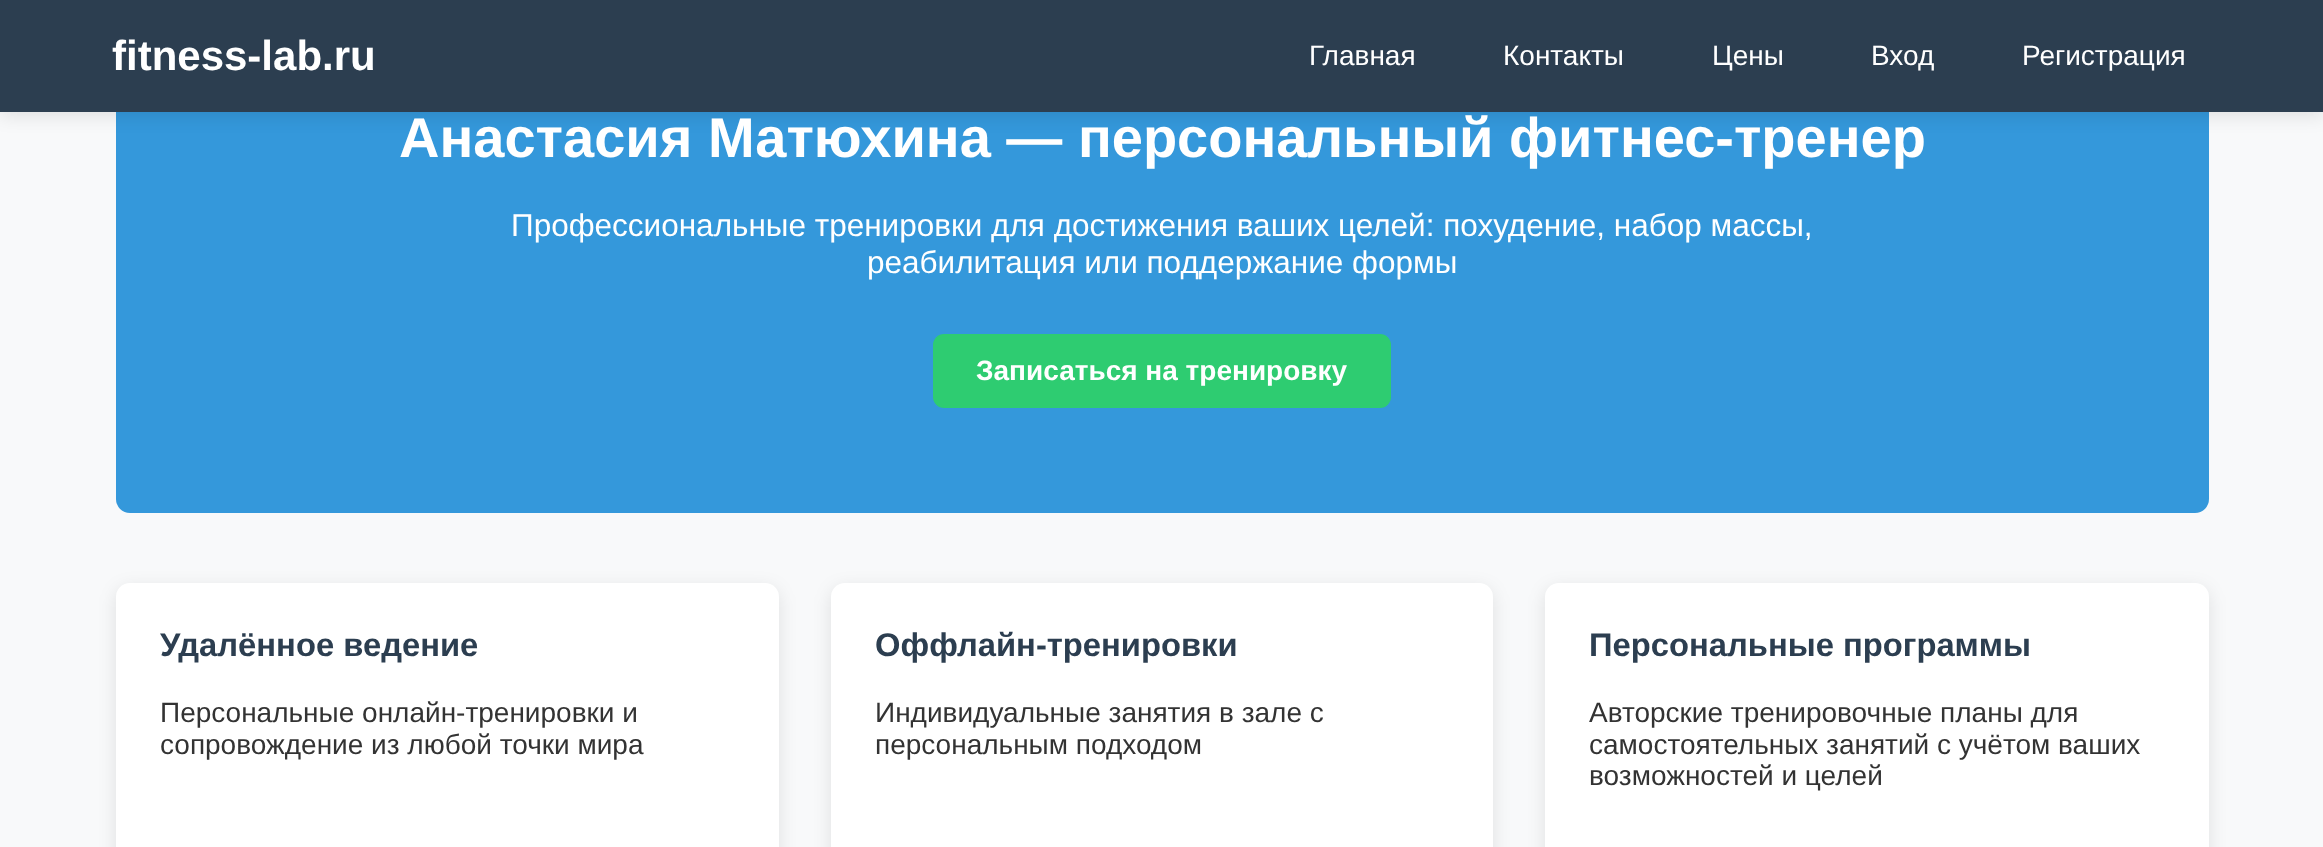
<svg xmlns="http://www.w3.org/2000/svg" width="2323" height="847">
<rect width="100%" height="100%" fill="#f8f9fa"/>
<rect x="116" y="-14" width="2093" height="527" rx="14" fill="#3498db"/>
<rect y="4" width="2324" height="112" fill="#0000001a" filter="blur(9px)"/>
<rect width="2323" height="112" fill="#2c3e50"/>
<text x="112" y="70" style="font-family:Liberation Sans;font-size:42px;font-weight:bold;fill:#fff">fitness-lab.ru</text>
<text x="1309" y="65" style="font-family:Liberation Sans;font-size:28px;fill:#fff">Главная</text>
<text x="1503" y="65" style="font-family:Liberation Sans;font-size:28px;fill:#fff">Контакты</text>
<text x="1712" y="65" style="font-family:Liberation Sans;font-size:28px;fill:#fff">Цены</text>
<text x="1871" y="65" style="font-family:Liberation Sans;font-size:28px;fill:#fff">Вход</text>
<text x="2022" y="65" style="font-family:Liberation Sans;font-size:28px;fill:#fff">Регистрация</text>
<text x="399" y="157" style="font-family:Liberation Sans;font-size:56px;font-weight:bold;fill:#fff">Анастасия Матюхина — персональный фитнес-тренер</text>
<text x="511" y="236" style="font-family:Liberation Sans;font-size:31.5px;fill:#fff">Профессиональные тренировки для достижения ваших целей: похудение, набор массы,</text>
<text x="867" y="273" style="font-family:Liberation Sans;font-size:31.5px;fill:#fff">реабилитация или поддержание формы</text>
<rect x="933" y="334" width="458" height="74" rx="11" fill="#2ecc71"/>
<text x="976" y="380" style="font-family:Liberation Sans;font-size:28px;font-weight:bold;fill:#fff">Записаться на тренировку</text>
<rect x="116" y="588" width="663" height="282" rx="14" fill="#0000001a" filter="blur(9px)"/>
<rect x="116" y="583" width="663" height="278" rx="14" fill="#fff"/>
<text x="160" y="656" style="font-family:Liberation Sans;font-size:32.75px;font-weight:bold;fill:#2c3e50">Удалённое ведение</text>
<text x="160" y="722" style="font-family:Liberation Sans;font-size:28px;fill:#333">Персональные онлайн-тренировки и</text>
<text x="160" y="754" style="font-family:Liberation Sans;font-size:28px;fill:#333">сопровождение из любой точки мира</text>
<rect x="831" y="588" width="662" height="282" rx="14" fill="#0000001a" filter="blur(9px)"/>
<rect x="831" y="583" width="662" height="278" rx="14" fill="#fff"/>
<text x="875" y="656" style="font-family:Liberation Sans;font-size:32.75px;font-weight:bold;fill:#2c3e50">Оффлайн-тренировки</text>
<text x="875" y="722" style="font-family:Liberation Sans;font-size:28px;fill:#333">Индивидуальные занятия в зале с</text>
<text x="875" y="754" style="font-family:Liberation Sans;font-size:28px;fill:#333">персональным подходом</text>
<rect x="1545" y="588" width="664" height="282" rx="14" fill="#0000001a" filter="blur(9px)"/>
<rect x="1545" y="583" width="664" height="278" rx="14" fill="#fff"/>
<text x="1589" y="656" style="font-family:Liberation Sans;font-size:32.75px;font-weight:bold;fill:#2c3e50">Персональные программы</text>
<text x="1589" y="722" style="font-family:Liberation Sans;font-size:28px;fill:#333">Авторские тренировочные планы для</text>
<text x="1589" y="754" style="font-family:Liberation Sans;font-size:28px;fill:#333">самостоятельных занятий с учётом ваших</text>
<text x="1589" y="785" style="font-family:Liberation Sans;font-size:28px;fill:#333">возможностей и целей</text>
</svg>
